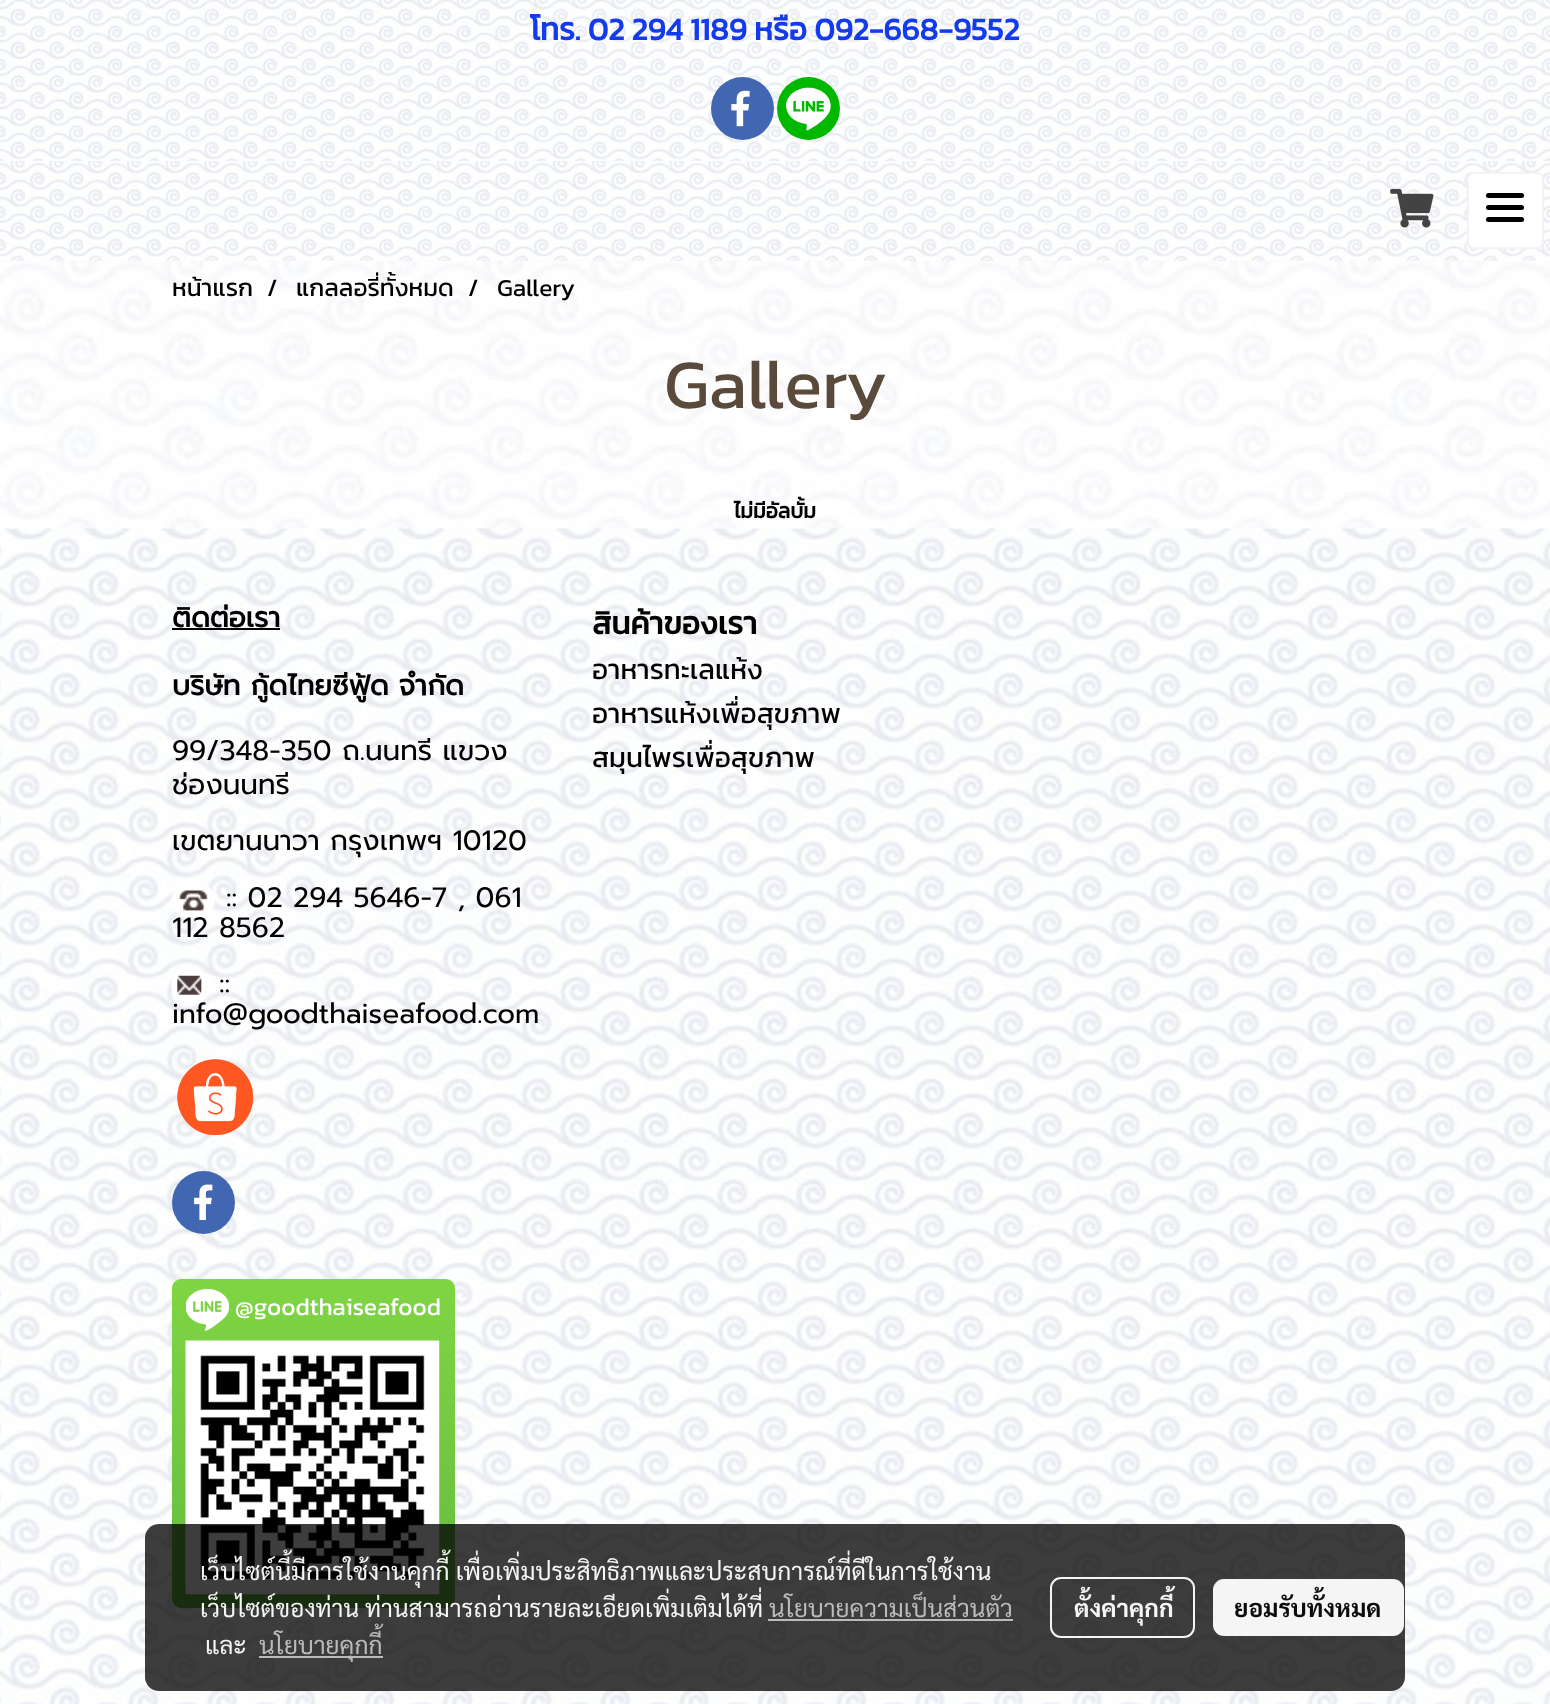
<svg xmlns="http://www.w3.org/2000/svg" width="1550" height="1704">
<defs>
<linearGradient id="g1" gradientUnits="userSpaceOnUse" x1="313" y1="1279" x2="313" y2="1608"><stop offset="0" stop-color="#80d544"/><stop offset="1" stop-color="#65bc3e"/></linearGradient>
</defs>
<rect width="100%" height="100%" fill="#fff"/>
<image x="0" y="260" width="1550" height="269" href="media/1.png"/>
<image x="0" y="0" width="1550" height="261" href="media/2.png"/>
<text x="530" y="40" style="font-family:Kanit;font-size:31.5px;font-weight:bold;fill:#133bed">โทร. 02 294 1189 หรือ 092-668-9552</text>
<circle cx="742.5" cy="108.5" r="31.5" fill="#4267b2"/>
<image x="731" y="90" width="19" height="37" href="media/3.png"/>
<circle cx="808.5" cy="108.5" r="31.5" fill="#00b800"/>
<image x="786" y="87" width="45" height="44" href="media/4.png"/>
<image x="0" y="161" width="1550" height="100" href="media/5.png"/>
<image x="1390" y="189" width="44" height="39" href="media/6.png"/>
<rect x="1468" y="173" width="75" height="75" rx="6" fill="#fff" stroke="#f3f3f3" stroke-width="2"/>
<rect x="1486" y="205" width="38" height="5" rx="2.5" fill="#000"/>
<rect x="1486" y="193" width="38" height="5" rx="2.5" fill="#000"/>
<rect x="1486" y="217" width="38" height="5" rx="2.5" fill="#000"/>
<text x="172" y="296" style="font-family:Kanit;font-size:24.5px;fill:#000">หน้าแรก</text>
<text x="267" y="296" style="font-family:Kanit;font-size:24.5px;fill:#000">/</text>
<text x="296" y="296" style="font-family:Kanit;font-size:24.5px;fill:#000">แกลลอรี่ทั้งหมด</text>
<text x="468" y="296" style="font-family:Kanit;font-size:24.5px;fill:#000">/</text>
<text x="497" y="296" style="font-family:Kanit;font-size:24.5px;fill:#000">Gallery</text>
<text x="664" y="408" style="font-family:Kanit;font-size:70px;fill:#5a4a3b">Gallery</text>
<text x="734" y="518" style="font-family:Kanit;font-size:21px;font-weight:bold;fill:#000">ไม่มีอัลบั้ม</text>
<image x="0" y="528" width="1550" height="1176" href="media/7.png"/>
<text x="172" y="627" style="font-family:Prompt;font-size:28px;font-weight:bold;fill:#000">ติดต่อเรา</text>
<rect x="172" y="628" width="108" height="2" fill="#000"/>
<text x="172" y="695" style="font-family:Prompt;font-size:28px;font-weight:bold;fill:#000">บริษัท กู้ดไทยซีฟู้ด จำกัด</text>
<text x="172" y="760" style="font-family:Prompt;font-size:28px;fill:#000">99/348-350 ถ.นนทรี แขวง</text>
<text x="172" y="794" style="font-family:Prompt;font-size:28px;fill:#000">ช่องนนทรี</text>
<text x="172" y="850" style="font-family:Prompt;font-size:28px;fill:#000">เขตยานนาวา กรุงเทพฯ 10120</text>
<image x="171" y="886" width="44" height="33" href="media/8.png"/>
<text x="226" y="907" style="font-family:Prompt;font-size:28px;fill:#000">:: 02 294 5646-7 , 061</text>
<text x="172" y="937" style="font-family:Prompt;font-size:28px;fill:#000">112 8562</text>
<image x="171" y="974" width="31" height="28" href="media/9.png"/>
<text x="219" y="993" style="font-family:Prompt;font-size:28px;fill:#000">::</text>
<text x="172" y="1023" style="font-family:Prompt;font-size:28px;fill:#000">info@goodthaiseafood.com</text>
<image x="177" y="1059" width="77" height="77" href="media/10.png"/>
<circle cx="203.5" cy="1202.5" r="31.5" fill="#4267b2"/>
<image x="194" y="1184" width="19" height="36" href="media/11.png"/>
<rect x="172" y="1279" width="283" height="329" rx="9" fill="url(#g1)"/>
<image x="186" y="1289" width="43" height="42" href="media/12.png"/>
<text x="235" y="1315" style="font-family:Kanit;font-size:24.5px;fill:#fff">@goodthaiseafood</text>
<image x="185" y="1340" width="255" height="255" href="media/13.png"/>
<text x="592" y="634" style="font-family:Kanit;font-size:31.5px;font-weight:bold;fill:#000">สินค้าของเรา</text>
<text x="592" y="679" style="font-family:Kanit;font-size:28px;fill:#000">อาหารทะเลแห้ง</text>
<text x="592" y="723" style="font-family:Kanit;font-size:28px;fill:#000">อาหารแห้งเพื่อสุขภาพ</text>
<text x="592" y="767" style="font-family:Kanit;font-size:28px;fill:#000">สมุนไพรเพื่อสุขภาพ</text>
<rect x="145" y="1524" width="1260" height="167" rx="14" fill="#000000c2"/>
<text x="200" y="1580" style="font-family:Sarabun;font-size:24.5px;fill:#f5f5f5">เว็บไซต์นี้มีการใช้งานคุกกี้ เพื่อเพิ่มประสิทธิภาพและประสบการณ์ที่ดีในการใช้งาน</text>
<text x="200" y="1617" style="font-family:Sarabun;font-size:24.5px;fill:#f5f5f5">เว็บไซต์ของท่าน</text>
<text x="365" y="1617" style="font-family:Sarabun;font-size:24.5px;fill:#f5f5f5">ท่านสามารถอ่านรายละเอียดเพิ่มเติมได้ที่</text>
<text x="769" y="1617" style="font-family:Sarabun;font-size:24.5px;fill:#bbb">นโยบายความเป็นส่วนตัว</text>
<rect x="768" y="1619" width="245" height="2" fill="#c2c2c2f2"/>
<text x="205" y="1654" style="font-family:Sarabun;font-size:24.5px;fill:#f5f5f5">และ</text>
<rect x="259" y="1656" width="124" height="2" fill="#c2c2c2f2"/>
<text x="259" y="1654" style="font-family:Sarabun;font-size:24.5px;fill:#bbb">นโยบายคุกกี้</text>
<rect x="1051" y="1578" width="143" height="59" rx="10" fill="none" stroke="#fffffff2" stroke-width="2"/>
<text x="1074" y="1617" style="font-family:Sarabun;font-size:24.5px;font-weight:bold;fill:#f5f5f5">ตั้งค่าคุกกี้</text>
<rect x="1213" y="1579" width="191" height="57" rx="11" fill="#fffffff2"/>
<text x="1234" y="1617" style="font-family:Sarabun;font-size:24.5px;font-weight:bold;fill:#0c0c0c">ยอมรับทั้งหมด</text>
</svg>
